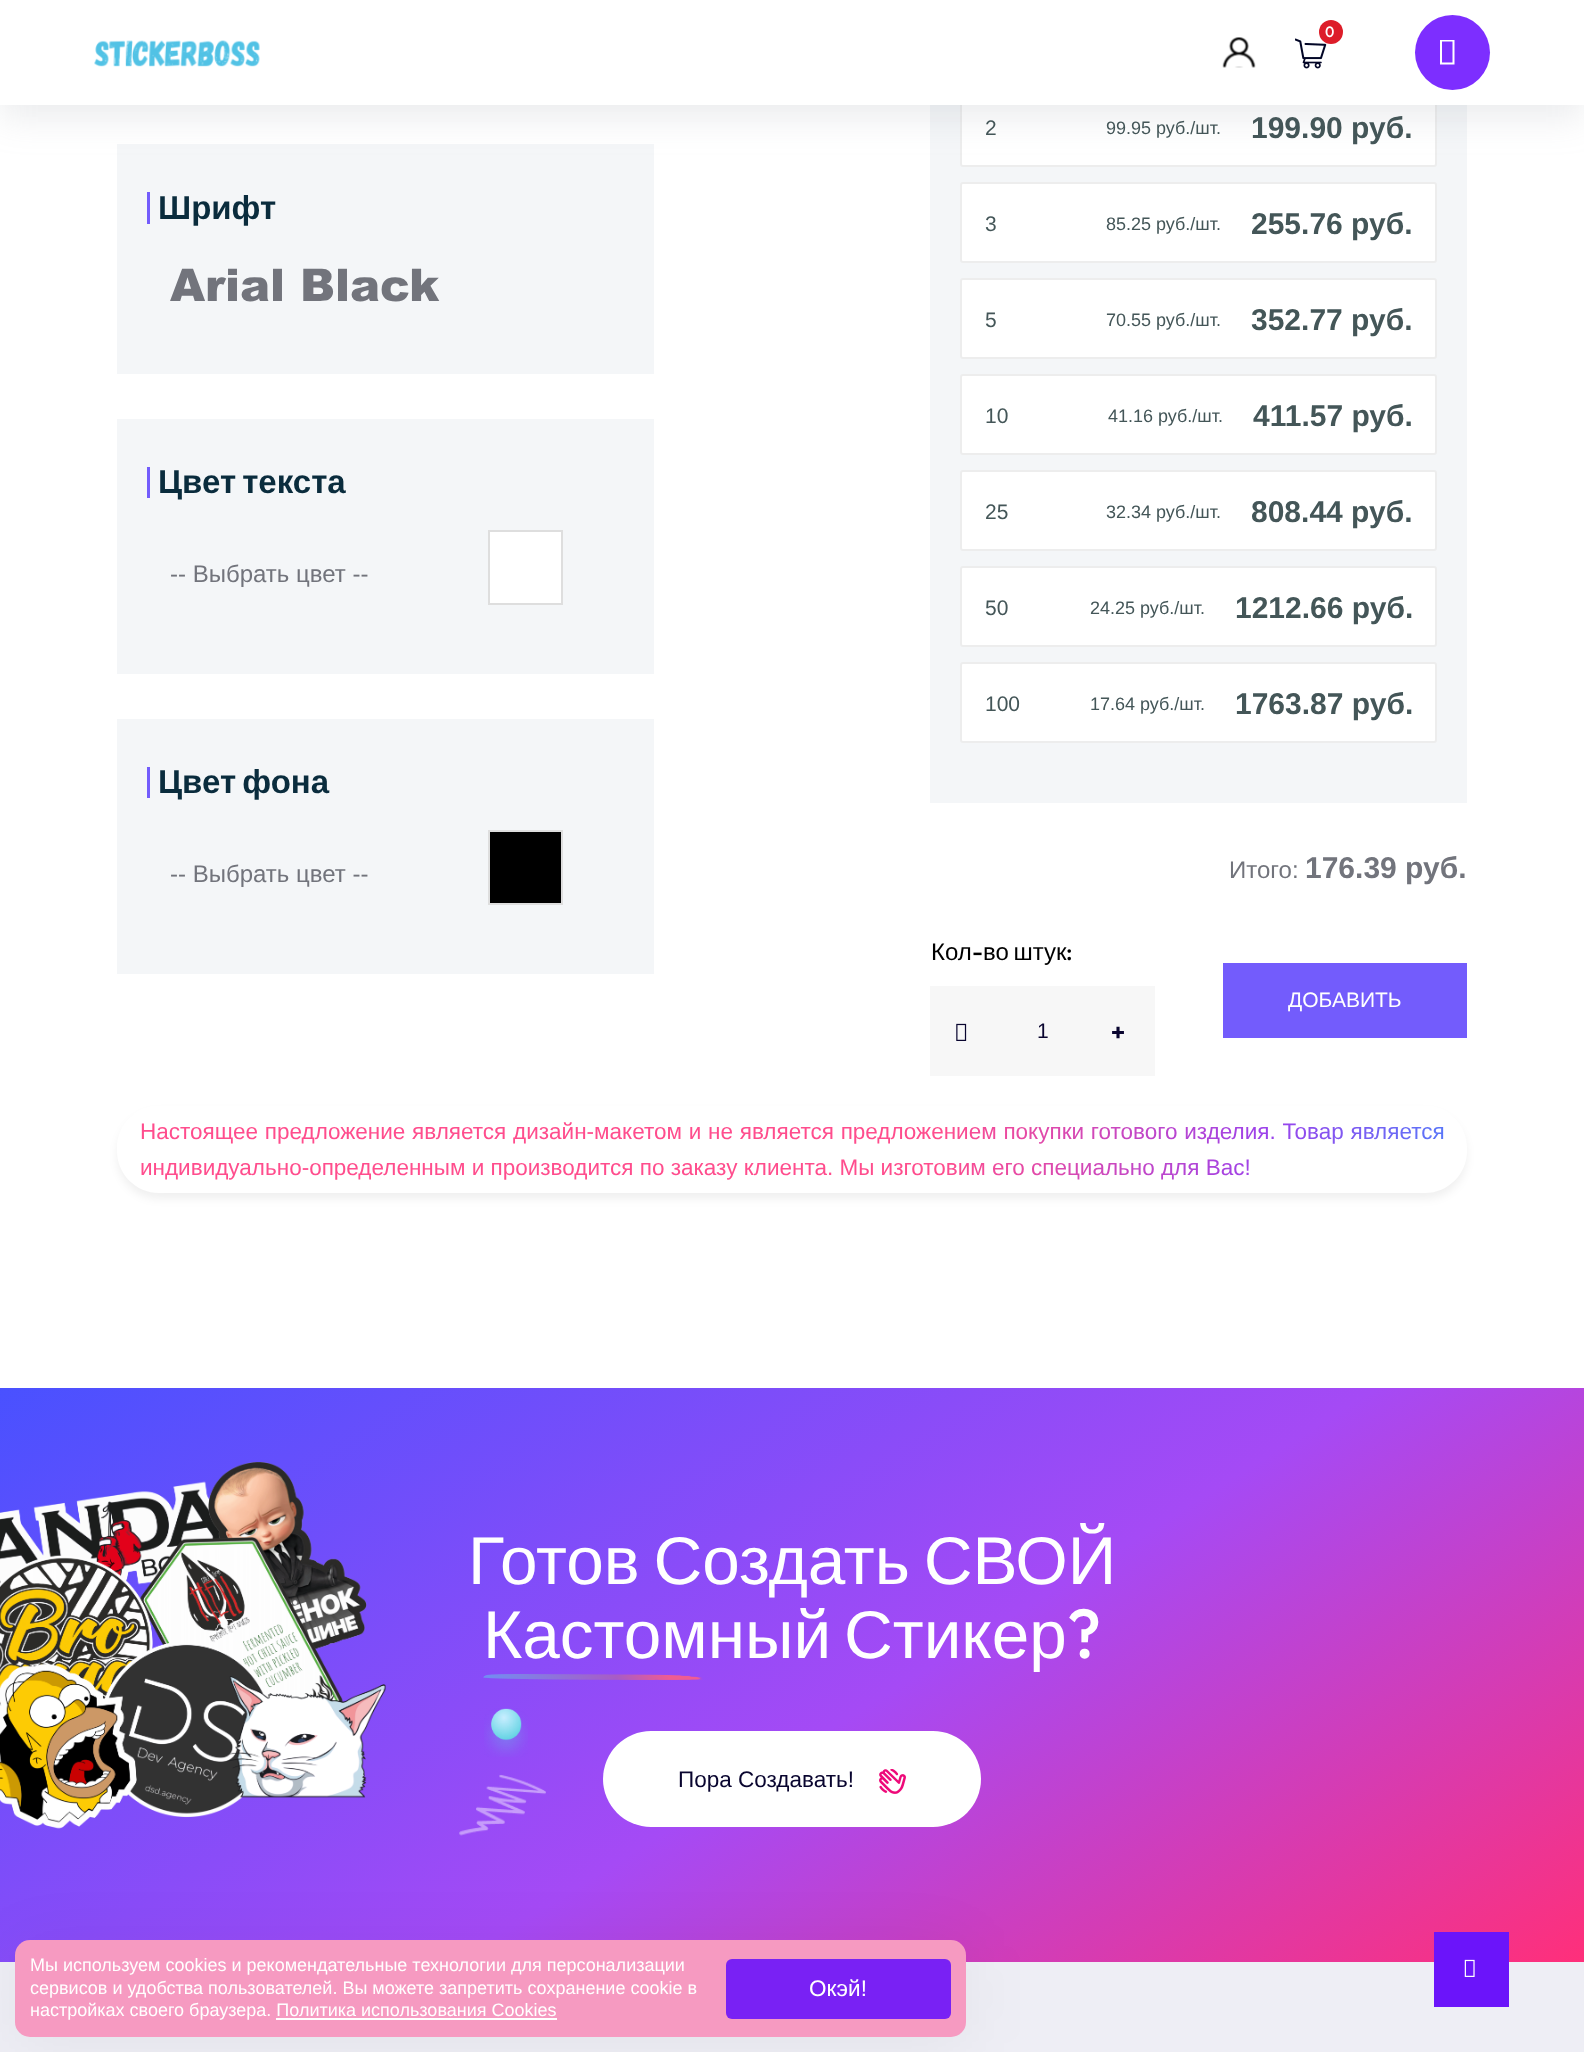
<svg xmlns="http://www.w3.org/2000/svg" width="1584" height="2052">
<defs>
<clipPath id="clip1"><path d="M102 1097h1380v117h-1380zm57 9h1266c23 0 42 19 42 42v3c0 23-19 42-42 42h-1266c-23 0-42-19-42-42v-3c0-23 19-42 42-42z" clip-rule="evenodd"/></clipPath>
<linearGradient id="g1" gradientUnits="userSpaceOnUse" x1="116" y1="1121" x2="1468" y2="1177"><stop offset="0.61" stop-color="#ff4d8d"/><stop offset="0.85" stop-color="#9c42eb"/><stop offset="1" stop-color="#517efb"/></linearGradient>
<linearGradient id="g2" gradientUnits="userSpaceOnUse" x1="441" y1="1112" x2="1143" y2="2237"><stop offset="0" stop-color="#4951ff"/><stop offset="0.55" stop-color="#a54af5"/><stop offset="1" stop-color="#ff2f7a"/></linearGradient>
</defs>
<rect width="100%" height="100%" fill="#fff"/>
<rect x="117" y="144" width="537" height="230" fill="#f4f6f8"/>
<rect x="930" y="105" width="537" height="698" fill="#f4f6f8"/>
<rect x="961" y="87" width="475" height="79" rx="2" fill="#fff" stroke="#ededed" stroke-width="2"/>
<rect y="12" width="1584" height="105" fill="#959da533" filter="blur(18px)"/>
<rect width="1584" height="105" fill="#fff"/>
<image x="1295" y="38" width="32" height="31" href="media/1.png"/>
<circle cx="1331" cy="32" r="12" fill="#dd1d29"/>
<text x="1325" y="37" style="font-family:Jost;font-size:15px;font-weight:500;fill:#fff">0</text>
<image x="1222" y="37" width="34" height="31" href="media/2.png"/>
<circle cx="1452.5" cy="52.5" r="37.5" fill="#7d2eff"/>
<path d="M1440 64.5v-24.5h14.5v24.5zm2-2h10.5v-21h-10.5z" fill="#fff"/>
<image x="94" y="40" width="166" height="27" href="media/3.png"/>
<rect x="147" y="192" width="3" height="32" fill="#735cfc"/>
<text x="158" y="219" style="font-family:Liberation Sans;font-size:33px;font-weight:bold;fill:#0a2c3d">Шрифт</text>
<text x="170" y="301" style="font-family:Arial;font-size:45px;font-weight:900;fill:#72747c">Arial Black</text>
<rect x="117" y="419" width="537" height="255" fill="#f4f6f8"/>
<rect x="147" y="467" width="3" height="31" fill="#735cfc"/>
<text x="158" y="493" word-spacing="-3" style="font-family:Liberation Sans;font-size:33px;font-weight:bold;fill:#0a2c3d">Цвет текста</text>
<text x="170" y="582" style="font-family:Liberation Sans;font-size:24px;fill:#72747c">-- Выбрать цвет --</text>
<rect x="489" y="531" width="73" height="73" fill="#fff" stroke="#dedede" stroke-width="2"/>
<rect x="117" y="719" width="537" height="255" fill="#f4f6f8"/>
<rect x="147" y="767" width="3" height="31" fill="#735cfc"/>
<text x="158" y="793" word-spacing="-3" style="font-family:Liberation Sans;font-size:33px;font-weight:bold;fill:#0a2c3d">Цвет фона</text>
<text x="170" y="882" style="font-family:Liberation Sans;font-size:24px;fill:#72747c">-- Выбрать цвет --</text>
<rect x="489" y="831" width="73" height="73" fill="#000" stroke="#dedede" stroke-width="2"/>
<text x="985" y="135" style="font-family:Liberation Sans;font-size:21px;fill:#445658">2</text>
<text x="1106" y="134" style="font-family:Liberation Sans;font-size:18px;fill:#445658">99.95 руб./шт.</text>
<text x="1251" y="138" style="font-family:Liberation Sans;font-size:30px;font-weight:bold;fill:#445658">199.90 руб.</text>
<rect x="961" y="183" width="475" height="79" rx="2" fill="#fff" stroke="#ededed" stroke-width="2"/>
<text x="985" y="231" style="font-family:Liberation Sans;font-size:21px;fill:#445658">3</text>
<text x="1106" y="230" style="font-family:Liberation Sans;font-size:18px;fill:#445658">85.25 руб./шт.</text>
<text x="1251" y="234" style="font-family:Liberation Sans;font-size:30px;font-weight:bold;fill:#445658">255.76 руб.</text>
<rect x="961" y="279" width="475" height="79" rx="2" fill="#fff" stroke="#ededed" stroke-width="2"/>
<text x="985" y="327" style="font-family:Liberation Sans;font-size:21px;fill:#445658">5</text>
<text x="1106" y="326" style="font-family:Liberation Sans;font-size:18px;fill:#445658">70.55 руб./шт.</text>
<text x="1251" y="330" style="font-family:Liberation Sans;font-size:30px;font-weight:bold;fill:#445658">352.77 руб.</text>
<rect x="961" y="375" width="475" height="79" rx="2" fill="#fff" stroke="#ededed" stroke-width="2"/>
<text x="985" y="423" style="font-family:Liberation Sans;font-size:21px;fill:#445658">10</text>
<text x="1108" y="422" style="font-family:Liberation Sans;font-size:18px;fill:#445658">41.16 руб./шт.</text>
<text x="1253" y="426" style="font-family:Liberation Sans;font-size:30px;font-weight:bold;fill:#445658">411.57 руб.</text>
<rect x="961" y="471" width="475" height="79" rx="2" fill="#fff" stroke="#ededed" stroke-width="2"/>
<text x="985" y="519" style="font-family:Liberation Sans;font-size:21px;fill:#445658">25</text>
<text x="1106" y="518" style="font-family:Liberation Sans;font-size:18px;fill:#445658">32.34 руб./шт.</text>
<text x="1251" y="522" style="font-family:Liberation Sans;font-size:30px;font-weight:bold;fill:#445658">808.44 руб.</text>
<rect x="961" y="567" width="475" height="79" rx="2" fill="#fff" stroke="#ededed" stroke-width="2"/>
<text x="985" y="615" style="font-family:Liberation Sans;font-size:21px;fill:#445658">50</text>
<text x="1090" y="614" style="font-family:Liberation Sans;font-size:18px;fill:#445658">24.25 руб./шт.</text>
<text x="1235" y="618" style="font-family:Liberation Sans;font-size:30px;font-weight:bold;fill:#445658">1212.66 руб.</text>
<rect x="961" y="663" width="475" height="79" rx="2" fill="#fff" stroke="#ededed" stroke-width="2"/>
<text x="985" y="711" style="font-family:Liberation Sans;font-size:21px;fill:#445658">100</text>
<text x="1090" y="710" style="font-family:Liberation Sans;font-size:18px;fill:#445658">17.64 руб./шт.</text>
<text x="1235" y="714" style="font-family:Liberation Sans;font-size:30px;font-weight:bold;fill:#445658">1763.87 руб.</text>
<text x="1229" y="878" style="font-family:Liberation Sans;font-size:24px;fill:#72747c">Итого:</text>
<text x="1305" y="878" style="font-family:Liberation Sans;font-size:30px;font-weight:bold;fill:#72747c">176.39 руб.</text>
<text x="931" y="960" style="font-family:Liberation Sans;font-size:24px;fill:#000">Кол</text>
<text x="972" y="960" style="font-family:Outfit;font-size:24px;font-weight:500;fill:#000">-</text>
<text x="983" y="960" word-spacing="-2" style="font-family:Liberation Sans;font-size:24px;fill:#000">во штук</text>
<text x="1066" y="960" style="font-family:Outfit;font-size:24px;font-weight:500;fill:#000">:</text>
<rect x="930" y="986" width="225" height="90" fill="#f7f7f7"/>
<image x="956" y="1023" width="11" height="18" href="media/4.png"/>
<text x="1037" y="1038" style="font-family:Liberation Sans;font-size:21px;fill:#09052f">1</text>
<text x="1111" y="1041" style="font-family:Noto Sans;font-size:24px;font-weight:900;fill:#09052f">+</text>
<rect x="1223" y="963" width="244" height="75" fill="#735cfc"/>
<text x="1288" y="1007" style="font-family:Liberation Sans;font-size:21px;fill:#fff">ДОБАВИТЬ</text>
<g clip-path="url(#clip1)">
<rect x="117" y="1112" width="1350" height="87" rx="42" fill="#0000000f" filter="blur(4.5px)"/>
</g>
<text x="140" y="1139" word-spacing="0.5" style="font-family:Liberation Sans;font-size:22.5px;fill:url(#g1)">Настоящее предложение является дизайн-макетом и не является предложением покупки готового изделия. Товар является</text>
<text x="140" y="1175" style="font-family:Liberation Sans;font-size:22.5px;fill:url(#g1)">индивидуально-определенным и производится по заказу клиента. Мы изготовим его специально для Вас!</text>
<rect y="1388" width="1584" height="574" fill="url(#g2)"/>
<image x="0" y="1462" width="386" height="367" href="media/5.png"/>
<text x="468" y="1584" word-spacing="-5" style="font-family:Liberation Sans;font-size:67.5px;fill:#fff">Готов Создать СВОЙ</text>
<text x="483" y="1658" style="font-family:Liberation Sans;font-size:67.5px;fill:#fff">Кастомный</text>
<image x="483" y="1674" width="220" height="6" href="media/6.png"/>
<text x="844" y="1658" style="font-family:Liberation Sans;font-size:67.5px;fill:#fff">Стикер</text>
<text x="1067" y="1658" style="font-family:Outfit;font-size:67.5px;font-weight:500;fill:#fff">?</text>
<rect x="603" y="1731" width="378" height="96" rx="48" fill="#fff"/>
<text x="678" y="1787" style="font-family:Liberation Sans;font-size:22.5px;fill:#09052f">Пора Создавать!</text>
<image x="879" y="1769" width="27" height="25" href="media/7.png"/>
<image x="484" y="1708" width="44" height="49" href="media/8.png"/>
<image x="459" y="1774" width="87" height="62" href="media/9.png"/>
<rect y="1962" width="1584" height="90" fill="#eeeef5"/>
<rect x="15" y="1946" width="951" height="97" rx="15" fill="#0000000d" filter="blur(32.5px)"/>
<rect x="15" y="1940" width="951" height="97" rx="15" fill="#f69ac1"/>
<text x="30" y="1971" style="font-family:Liberation Sans;font-size:18px;fill:#fff">Мы используем cookies и рекомендательные технологии для персонализации</text>
<text x="30" y="1994" style="font-family:Liberation Sans;font-size:18px;fill:#fff">сервисов и удобства пользователей. Вы можете запретить сохранение cookie в</text>
<text x="30" y="2016" style="font-family:Liberation Sans;font-size:18px;fill:#fff">настройках своего браузера. Политика использования Cookies</text>
<rect x="276" y="2018" width="281" height="2" fill="#fff"/>
<rect x="726" y="1959" width="225" height="60" rx="6" fill="#7921f4"/>
<text x="809" y="1996" style="font-family:Liberation Sans;font-size:22.5px;fill:#fff">Окэй!</text>
<rect x="1434" y="1932" width="75" height="75" fill="#6b14fa"/>
<image x="1464" y="1959" width="11" height="18" href="media/10.png"/>
</svg>
